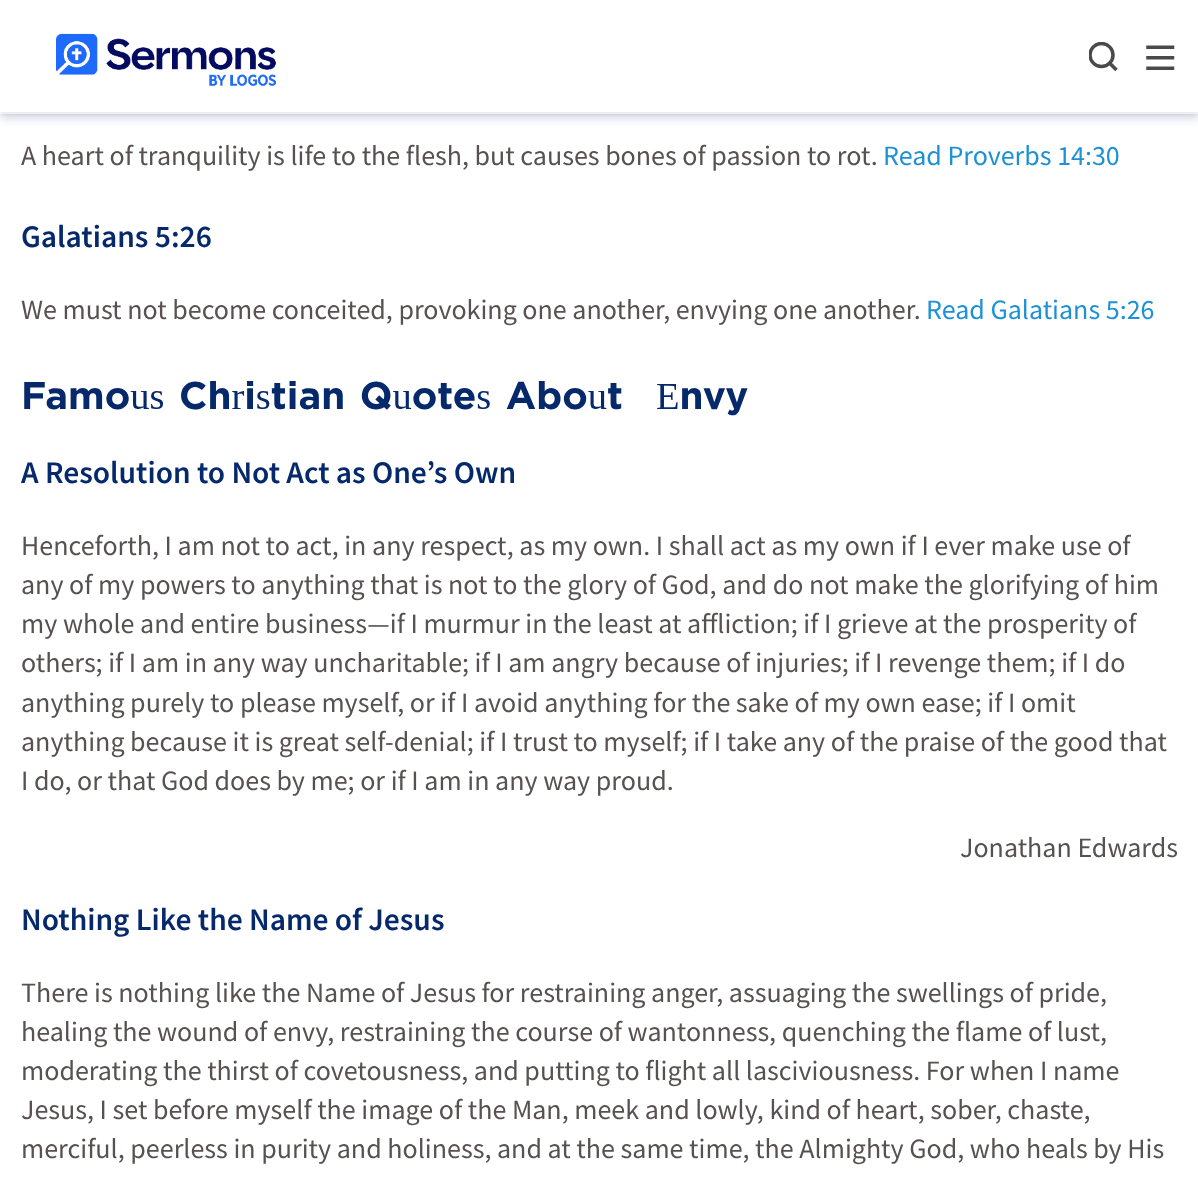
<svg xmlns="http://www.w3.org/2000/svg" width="1198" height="1192">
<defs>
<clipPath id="clip1"><path d="M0 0h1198v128h-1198zm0 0h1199v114h-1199z" clip-rule="evenodd"/></clipPath>
<clipPath id="clip2"><path d="M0 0h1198v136h-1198zm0 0h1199v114h-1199z" clip-rule="evenodd"/></clipPath>
<clipPath id="clip3"><rect x="1089" y="42" width="31" height="32"/></clipPath>
</defs>
<rect width="100%" height="100%" fill="#fff"/>
<rect y="2" width="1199" height="112" fill="#0000001a" filter="blur(2px)"/>
<rect width="1198" height="112" fill="#fff"/>
<g clip-path="url(#clip1)">
<rect x="2" y="5" width="1195" height="111" fill="#6e83b733" filter="blur(3.5px)"/>
</g>
<g clip-path="url(#clip2)">
<rect y="7" width="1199" height="114" fill="#6e83b724" filter="blur(4.5px)"/>
</g>
<image x="56" y="33" width="220" height="54" href="media/1.png"/>
<g clip-path="url(#clip3)">
<circle cx="1101.5" cy="55" r="11.5" fill="none" stroke="#4a4a4a" stroke-width="3.5"/>
</g>
<path d="M1108.5 62l8 8" fill="none" stroke="#4a4a4a" stroke-width="3.5"/>
<image x="1146" y="45" width="29" height="25" href="media/2.png"/>
<text x="21" y="165" style="font-family:Source Sans Pro;font-size:28px;fill:#575251">A heart of tranquility is life to the flesh, but causes bones of passion to rot.</text>
<text x="883" y="165" style="font-family:Source Sans Pro;font-size:28px;fill:#1e91d6">Read Proverbs 14:30</text>
<text x="21" y="247" style="font-family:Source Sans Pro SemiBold;font-size:31.5px;font-weight:600;fill:#06296c">Galatians 5:26</text>
<text x="21" y="319" style="font-family:Source Sans Pro;font-size:28px;fill:#575251">We must not become conceited, provoking one another, envying one another.</text>
<text x="926" y="319" style="font-family:Source Sans Pro;font-size:28px;fill:#1e91d6">Read Galatians 5:26</text>
<text x="21" y="409" word-spacing="3" style="font-family:'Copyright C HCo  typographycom';font-size:38.5px;fill:#06296c">Famous Christian Quotes About</text>
<text x="656" y="409" style="font-family:'Copyright C HCo  typographycom';font-size:38.5px;fill:#06296c">Envy</text>
<text x="21" y="483" style="font-family:Source Sans Pro SemiBold;font-size:31.5px;font-weight:600;fill:#06296c">A Resolution to Not Act as One’s Own</text>
<text x="21" y="555" style="font-family:Source Sans Pro;font-size:28px;fill:#575251">Henceforth, I am not to act, in any respect, as my own. I shall act as my own if I ever make use of</text>
<text x="21" y="594" style="font-family:Source Sans Pro;font-size:28px;fill:#575251">any of my powers to anything that is not to the glory of God, and do not make the glorifying of him</text>
<text x="21" y="633" style="font-family:Source Sans Pro;font-size:28px;fill:#575251">my whole and entire business—if I murmur in the least at affliction; if I grieve at the prosperity of</text>
<text x="21" y="672" style="font-family:Source Sans Pro;font-size:28px;fill:#575251">others; if I am in any way uncharitable; if I am angry because of injuries; if I revenge them; if I do</text>
<text x="21" y="712" style="font-family:Source Sans Pro;font-size:28px;fill:#575251">anything purely to please myself, or if I avoid anything for the sake of my own ease; if I omit</text>
<text x="21" y="751" style="font-family:Source Sans Pro;font-size:28px;fill:#575251">anything because it is great self-denial; if I trust to myself; if I take any of the praise of the good that</text>
<text x="21" y="790" style="font-family:Source Sans Pro;font-size:28px;fill:#575251">I do, or that God does by me; or if I am in any way proud.</text>
<text x="960" y="857" style="font-family:Source Sans Pro;font-size:28px;fill:#575251">Jonathan Edwards</text>
<text x="21" y="930" style="font-family:Source Sans Pro SemiBold;font-size:31.5px;font-weight:600;fill:#06296c">Nothing Like the Name of Jesus</text>
<text x="21" y="1002" style="font-family:Source Sans Pro;font-size:28px;fill:#575251">There is nothing like the Name of Jesus for restraining anger, assuaging the swellings of pride,</text>
<text x="21" y="1041" style="font-family:Source Sans Pro;font-size:28px;fill:#575251">healing the wound of envy, restraining the course of wantonness, quenching the flame of lust,</text>
<text x="21" y="1080" style="font-family:Source Sans Pro;font-size:28px;fill:#575251">moderating the thirst of covetousness, and putting to flight all lasciviousness. For when I name</text>
<text x="21" y="1119" style="font-family:Source Sans Pro;font-size:28px;fill:#575251">Jesus, I set before myself the image of the Man, meek and lowly, kind of heart, sober, chaste,</text>
<text x="21" y="1158" style="font-family:Source Sans Pro;font-size:28px;fill:#575251">merciful, peerless in purity and holiness, and at the same time, the Almighty God, who heals by His</text>
</svg>
